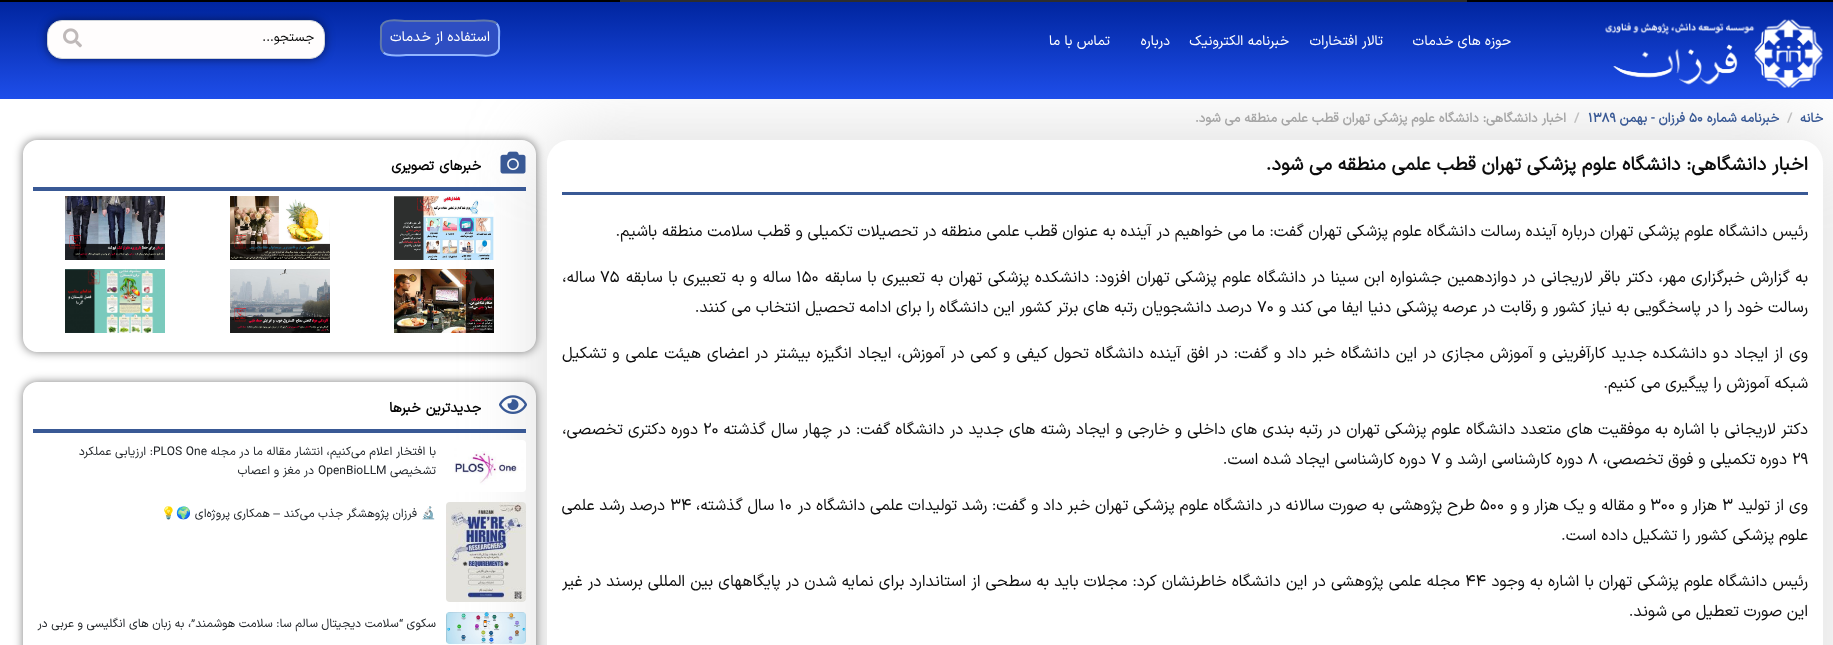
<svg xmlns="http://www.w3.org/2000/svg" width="1833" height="645">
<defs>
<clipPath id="clip1"><path d="M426 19h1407v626h-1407zm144 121h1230c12.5 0 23 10.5 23 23v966c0 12.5-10.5 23-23 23h-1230c-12.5 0-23-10.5-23-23v-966c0-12.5 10.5-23 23-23z" clip-rule="evenodd"/></clipPath>
<linearGradient id="g1" gradientUnits="userSpaceOnUse" x1="917" y1="99" x2="917" y2="2"><stop offset="0" stop-color="#1e4eea"/><stop offset="1" stop-color="#00259f"/></linearGradient>
<clipPath id="clip2"><path d="M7 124h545v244h-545zm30 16h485c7.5 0 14 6.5 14 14v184c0 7.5-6.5 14-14 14h-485c-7.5 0-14-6.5-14-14v-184c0-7.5 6.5-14 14-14z" clip-rule="evenodd"/></clipPath>
<clipPath id="clip3"><path d="M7 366h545v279h-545zm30 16h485c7.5 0 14 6.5 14 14v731c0 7.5-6.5 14-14 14h-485c-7.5 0-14-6.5-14-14v-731c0-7.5 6.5-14 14-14z" clip-rule="evenodd"/></clipPath>
</defs>
<rect width="100%" height="100%" fill="#fff"/>
<rect width="1833" height="2" fill="#000"/>
<rect x="620" width="847" height="2" fill="#2d2d2d"/>
<g clip-path="url(#clip1)">
<rect x="547" y="140" width="1276" height="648" rx="23" fill="#b3b3b380" filter="blur(40px)"/>
</g>
<rect y="2" width="1833" height="97" fill="url(#g1)"/>
<image x="1605" y="19" width="218" height="69" href="media/1.png"/>
<text x="1511" y="45" style="font-family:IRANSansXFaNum;font-size:14px;direction:rtl;fill:#fff">حوزه های خدمات</text>
<text x="1383" y="45" style="font-family:IRANSansXFaNum;font-size:14px;direction:rtl;fill:#fff">تالار افتخارات</text>
<text x="1289" y="45" style="font-family:IRANSansXFaNum;font-size:14px;direction:rtl;fill:#fff">خبرنامه الکترونیک</text>
<text x="1170" y="45" style="font-family:IRANSansXFaNum;font-size:14px;direction:rtl;fill:#fff">درباره</text>
<text x="1110" y="45" style="font-family:IRANSansXFaNum;font-size:14px;direction:rtl;fill:#fff">تماس با ما</text>
<rect x="380" y="20" width="120" height="36" rx="9" fill="#2e4ec2"/>
<path d="M496.5 23.5c4 3.5 2.5 10 2.5 14.5v10.5c-2 10.5-19.5 6.5-25 6.5h-68c-3 0-17.5 2.5-22.5-2.5" fill="none" stroke="#91b5ff" stroke-width="2"/>
<path d="M383.5 52.5c-4-3.5-2.5-10-2.5-14.5v-10.5c2-10.5 19.5-6.5 25-6.5h68c3 0 17.5-2.5 22.5 2.5" fill="none" stroke="#6179aa" stroke-width="2"/>
<text x="490" y="41" style="font-family:IRANSansXFaNum;font-size:14px;direction:rtl;fill:#fff">استفاده از خدمات</text>
<rect x="47" y="20" width="278" height="39" rx="15" fill="#00000080" filter="blur(5px)"/>
<rect x="47.5" y="20.5" width="277" height="38" rx="14.5" fill="#fffdfd" stroke="#ced4da"/>
<text x="314" y="41" style="font-family:IRANSansXFaNum;font-size:13px;direction:rtl;fill:#000">جستجو...</text>
<image x="63" y="28" width="19" height="20" href="media/2.png"/>
<text x="1823" y="122" style="font-family:IRANSansXFaNum;font-size:13px;font-weight:bold;direction:rtl;fill:#395995">خانه</text>
<text x="1787" y="122" style="font-family:IRANSansXFaNum;font-size:13px;font-weight:bold;fill:#bfbfbf">/</text>
<text x="1779" y="122" style="font-family:IRANSansXFaNum;font-size:13px;font-weight:bold;direction:rtl;fill:#395995">خبرنامه شماره</text>
<text x="1689" y="122" style="font-family:IRANSansXFaNum;font-size:13px;font-weight:bold;fill:#395995">50</text>
<text x="1685" y="122" style="font-family:IRANSansXFaNum;font-size:13px;font-weight:bold;direction:rtl;fill:#395995">فرزان - بهمن</text>
<text x="1588" y="122" style="font-family:IRANSansXFaNum;font-size:13px;font-weight:bold;fill:#395995">1389</text>
<text x="1574" y="122" style="font-family:IRANSansXFaNum;font-size:13px;font-weight:bold;fill:#bfbfbf">/</text>
<text x="1566" y="122" style="font-family:IRANSansXFaNum;font-size:13px;font-weight:bold;direction:rtl;fill:#a5a5a5">اخبار دانشگاهی: دانشگاه علوم پزشکی تهران قطب علمی منطقه می شود.</text>
<text x="1808" y="170" style="font-family:IRANSansXFaNum;font-size:19px;font-weight:bold;direction:rtl;fill:#0c0c0c">اخبار دانشگاهی: دانشگاه علوم پزشکی تهران قطب علمی منطقه می شود.</text>
<rect x="562" y="192" width="1246" height="3" fill="#395995"/>
<text x="1808" y="236" style="font-family:IRANSansXFaNum;font-size:16px;direction:rtl;fill:#0c0c0c">رئیس دانشگاه علوم پزشکی تهران درباره آینده رسالت دانشگاه علوم پزشکی تهران گفت: ما می خواهیم در آینده به عنوان قطب علمی منطقه در تحصیلات تکمیلی و قطب سلامت منطقه باشیم.</text>
<text x="1808" y="282" word-spacing="0.75" style="font-family:IRANSansXFaNum;font-size:16px;direction:rtl;fill:#0c0c0c">به گزارش خبرگزاری مهر، دکتر باقر لاریجانی در دوازدهمین جشنواره ابن سینا در دانشگاه علوم پزشکی تهران افزود: دانشکده پزشکی تهران به تعبیری با سابقه</text>
<text x="796" y="282" style="font-family:IRANSansXFaNum;font-size:16px;fill:#0c0c0c">۱۵۰</text>
<text x="791" y="282" word-spacing="0.75" style="font-family:IRANSansXFaNum;font-size:16px;direction:rtl;fill:#0c0c0c">ساله و به تعبیری با سابقه</text>
<text x="600" y="282" style="font-family:IRANSansXFaNum;font-size:16px;fill:#0c0c0c">۷۵</text>
<text x="595" y="282" style="font-family:IRANSansXFaNum;font-size:16px;direction:rtl;fill:#0c0c0c">ساله،</text>
<text x="1808" y="312" style="font-family:IRANSansXFaNum;font-size:16px;direction:rtl;fill:#0c0c0c">رسالت خود را در پاسخگویی به نیاز کشور و رقابت در عرصه پزشکی دنیا ایفا می کند و</text>
<text x="1257" y="312" style="font-family:IRANSansXFaNum;font-size:16px;fill:#0c0c0c">۷۰</text>
<text x="1252" y="312" style="font-family:IRANSansXFaNum;font-size:16px;direction:rtl;fill:#0c0c0c">درصد دانشجویان رتبه های برتر کشور این دانشگاه را برای ادامه تحصیل انتخاب می کنند.</text>
<text x="1808" y="358" word-spacing="1" style="font-family:IRANSansXFaNum;font-size:16px;direction:rtl;fill:#0c0c0c">وی از ایجاد دو دانشکده جدید کارآفرینی و آموزش مجازی در این دانشگاه خبر داد و گفت: در افق آینده دانشگاه تحول کیفی و کمی در آموزش، ایجاد انگیزه بیشتر در اعضای هیئت علمی و تشکیل</text>
<text x="1808" y="388" style="font-family:IRANSansXFaNum;font-size:16px;direction:rtl;fill:#0c0c0c">شبکه آموزش را پیگیری می کنیم.</text>
<text x="1808" y="434" word-spacing="0.45" style="font-family:IRANSansXFaNum;font-size:16px;direction:rtl;fill:#0c0c0c">دکتر لاریجانی با اشاره به موفقیت های متعدد دانشگاه علوم پزشکی تهران در رتبه بندی های داخلی و خارجی و ایجاد رشته های جدید در دانشگاه گفت: در چهار سال گذشته</text>
<text x="703" y="434" style="font-family:IRANSansXFaNum;font-size:16px;fill:#0c0c0c">۲۰</text>
<text x="698" y="434" word-spacing="0.45" style="font-family:IRANSansXFaNum;font-size:16px;direction:rtl;fill:#0c0c0c">دوره دکتری تخصصی،</text>
<text x="1792" y="464" style="font-family:IRANSansXFaNum;font-size:16px;fill:#0c0c0c">۲۹</text>
<text x="1787" y="464" style="font-family:IRANSansXFaNum;font-size:16px;direction:rtl;fill:#0c0c0c">دوره تکمیلی و فوق تخصصی،</text>
<text x="1588" y="464" style="font-family:IRANSansXFaNum;font-size:16px;fill:#0c0c0c">۸</text>
<text x="1583" y="464" style="font-family:IRANSansXFaNum;font-size:16px;direction:rtl;fill:#0c0c0c">دوره کارشناسی ارشد و</text>
<text x="1431" y="464" style="font-family:IRANSansXFaNum;font-size:16px;fill:#0c0c0c">۷</text>
<text x="1426" y="464" style="font-family:IRANSansXFaNum;font-size:16px;direction:rtl;fill:#0c0c0c">دوره کارشناسی ایجاد شده است.</text>
<text x="1808" y="510" style="font-family:IRANSansXFaNum;font-size:16px;direction:rtl;fill:#0c0c0c">وی از تولید</text>
<text x="1722" y="510" style="font-family:IRANSansXFaNum;font-size:16px;fill:#0c0c0c">۳</text>
<text x="1717" y="510" style="font-family:IRANSansXFaNum;font-size:16px;direction:rtl;fill:#0c0c0c">هزار و</text>
<text x="1650" y="510" style="font-family:IRANSansXFaNum;font-size:16px;fill:#0c0c0c">۳۰۰</text>
<text x="1646" y="510" style="font-family:IRANSansXFaNum;font-size:16px;direction:rtl;fill:#0c0c0c">و مقاله و یک هزار و و</text>
<text x="1480" y="510" style="font-family:IRANSansXFaNum;font-size:16px;fill:#0c0c0c">۵۰۰</text>
<text x="1475" y="510" style="font-family:IRANSansXFaNum;font-size:16px;direction:rtl;fill:#0c0c0c">طرح پژوهشی به صورت سالانه در دانشگاه علوم پزشکی تهران خبر داد و گفت: رشد تولیدات علمی دانشگاه در</text>
<text x="779" y="510" style="font-family:IRANSansXFaNum;font-size:16px;fill:#0c0c0c">۱۰</text>
<text x="774" y="510" style="font-family:IRANSansXFaNum;font-size:16px;direction:rtl;fill:#0c0c0c">سال گذشته،</text>
<text x="670" y="510" style="font-family:IRANSansXFaNum;font-size:16px;fill:#0c0c0c">۳۴</text>
<text x="665" y="510" style="font-family:IRANSansXFaNum;font-size:16px;direction:rtl;fill:#0c0c0c">درصد رشد علمی</text>
<text x="1808" y="540" style="font-family:IRANSansXFaNum;font-size:16px;direction:rtl;fill:#0c0c0c">علوم پزشکی کشور را تشکیل داده است.</text>
<text x="1808" y="586" word-spacing="0.3" style="font-family:IRANSansXFaNum;font-size:16px;direction:rtl;fill:#0c0c0c">رئیس دانشگاه علوم پزشکی تهران با اشاره به وجود</text>
<text x="1465" y="586" style="font-family:IRANSansXFaNum;font-size:16px;fill:#0c0c0c">۴۴</text>
<text x="1460" y="586" word-spacing="0.3" style="font-family:IRANSansXFaNum;font-size:16px;direction:rtl;fill:#0c0c0c">مجله علمی پژوهشی در این دانشگاه خاطرنشان کرد: مجلات باید به سطحی از استاندارد برای نمایه شدن در پایگاههای بین المللی برسند در غیر</text>
<text x="1808" y="616" style="font-family:IRANSansXFaNum;font-size:16px;direction:rtl;fill:#0c0c0c">این صورت تعطیل می شوند.</text>
<g clip-path="url(#clip2)">
<rect x="23" y="140" width="513" height="212" rx="14" fill="#00000080" filter="blur(5px)"/>
</g>
<rect x="33" y="187" width="493" height="4" fill="#395995"/>
<image x="500" y="151" width="26" height="23" href="media/3.png"/>
<text x="481" y="170" word-spacing="1" style="font-family:IRANSansXFaNum;font-size:14px;font-weight:bold;letter-spacing:-0.1px;direction:rtl;fill:#000">خبرهای تصویری</text>
<image x="394" y="196" width="100" height="64" href="media/4.png"/>
<image x="230" y="196" width="100" height="64" href="media/5.png"/>
<image x="65" y="196" width="100" height="64" href="media/6.png"/>
<image x="394" y="269" width="100" height="64" href="media/7.png"/>
<image x="230" y="269" width="100" height="64" href="media/8.png"/>
<image x="65" y="269" width="100" height="64" href="media/9.png"/>
<g clip-path="url(#clip3)">
<rect x="23" y="382" width="513" height="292" rx="14" fill="#00000080" filter="blur(5px)"/>
</g>
<rect x="33" y="429" width="493" height="4" fill="#395995"/>
<image x="499" y="395" width="28" height="19" href="media/10.png"/>
<text x="481" y="412" word-spacing="1" style="font-family:IRANSansXFaNum;font-size:14px;font-weight:bold;letter-spacing:-0.1px;direction:rtl;fill:#000">جدیدترین خبرها</text>
<image x="452" y="440" width="74" height="52" href="media/11.png"/>
<text x="436" y="455" style="font-family:IRANSansXFaNum;font-size:12px;direction:rtl;fill:#212529">با افتخار اعلام می‌کنیم، انتشار مقاله ما در مجله</text>
<text x="153" y="455" style="font-family:IRANSansXFaNum;font-size:12px;fill:#212529">PLOS One</text>
<text x="153" y="455" style="font-family:IRANSansXFaNum;font-size:12px;direction:rtl;fill:#212529">: ارزیابی عملکرد</text>
<text x="436" y="474" style="font-family:IRANSansXFaNum;font-size:12px;direction:rtl;fill:#212529">تشخیصی</text>
<text x="318" y="474" style="font-family:IRANSansXFaNum;font-size:12px;fill:#212529">OpenBioLLM</text>
<text x="314" y="474" style="font-family:IRANSansXFaNum;font-size:12px;direction:rtl;fill:#212529">در مغز و اعصاب</text>
<image x="446" y="502" width="80" height="100" href="media/12.png"/>
<text x="436" y="517" style="font-family:Noto Color Emoji;font-size:12px;direction:rtl;fill:#212529">🔬</text>
<text x="417" y="517" style="font-family:IRANSansXFaNum;font-size:12px;direction:rtl;fill:#212529">فرزان پژوهشگر جذب می‌کند</text>
<text x="280" y="517" style="font-family:Liberation Sans;font-size:12px;direction:rtl;fill:#212529">–</text>
<text x="270" y="517" style="font-family:IRANSansXFaNum;font-size:12px;direction:rtl;fill:#212529">همکاری پروژه‌ای</text>
<text x="191" y="517" style="font-family:Noto Color Emoji;font-size:12px;direction:rtl;fill:#212529">🌍💡</text>
<image x="446" y="612" width="80" height="32" href="media/13.png"/>
<text x="436" y="627" style="font-family:IRANSansXFaNum;font-size:12px;direction:rtl;fill:#212529">سکوی “سلامت دیجیتال سالم سا: سلامت هوشمند”، به زبان های انگلیسی و عربی در</text>
</svg>
